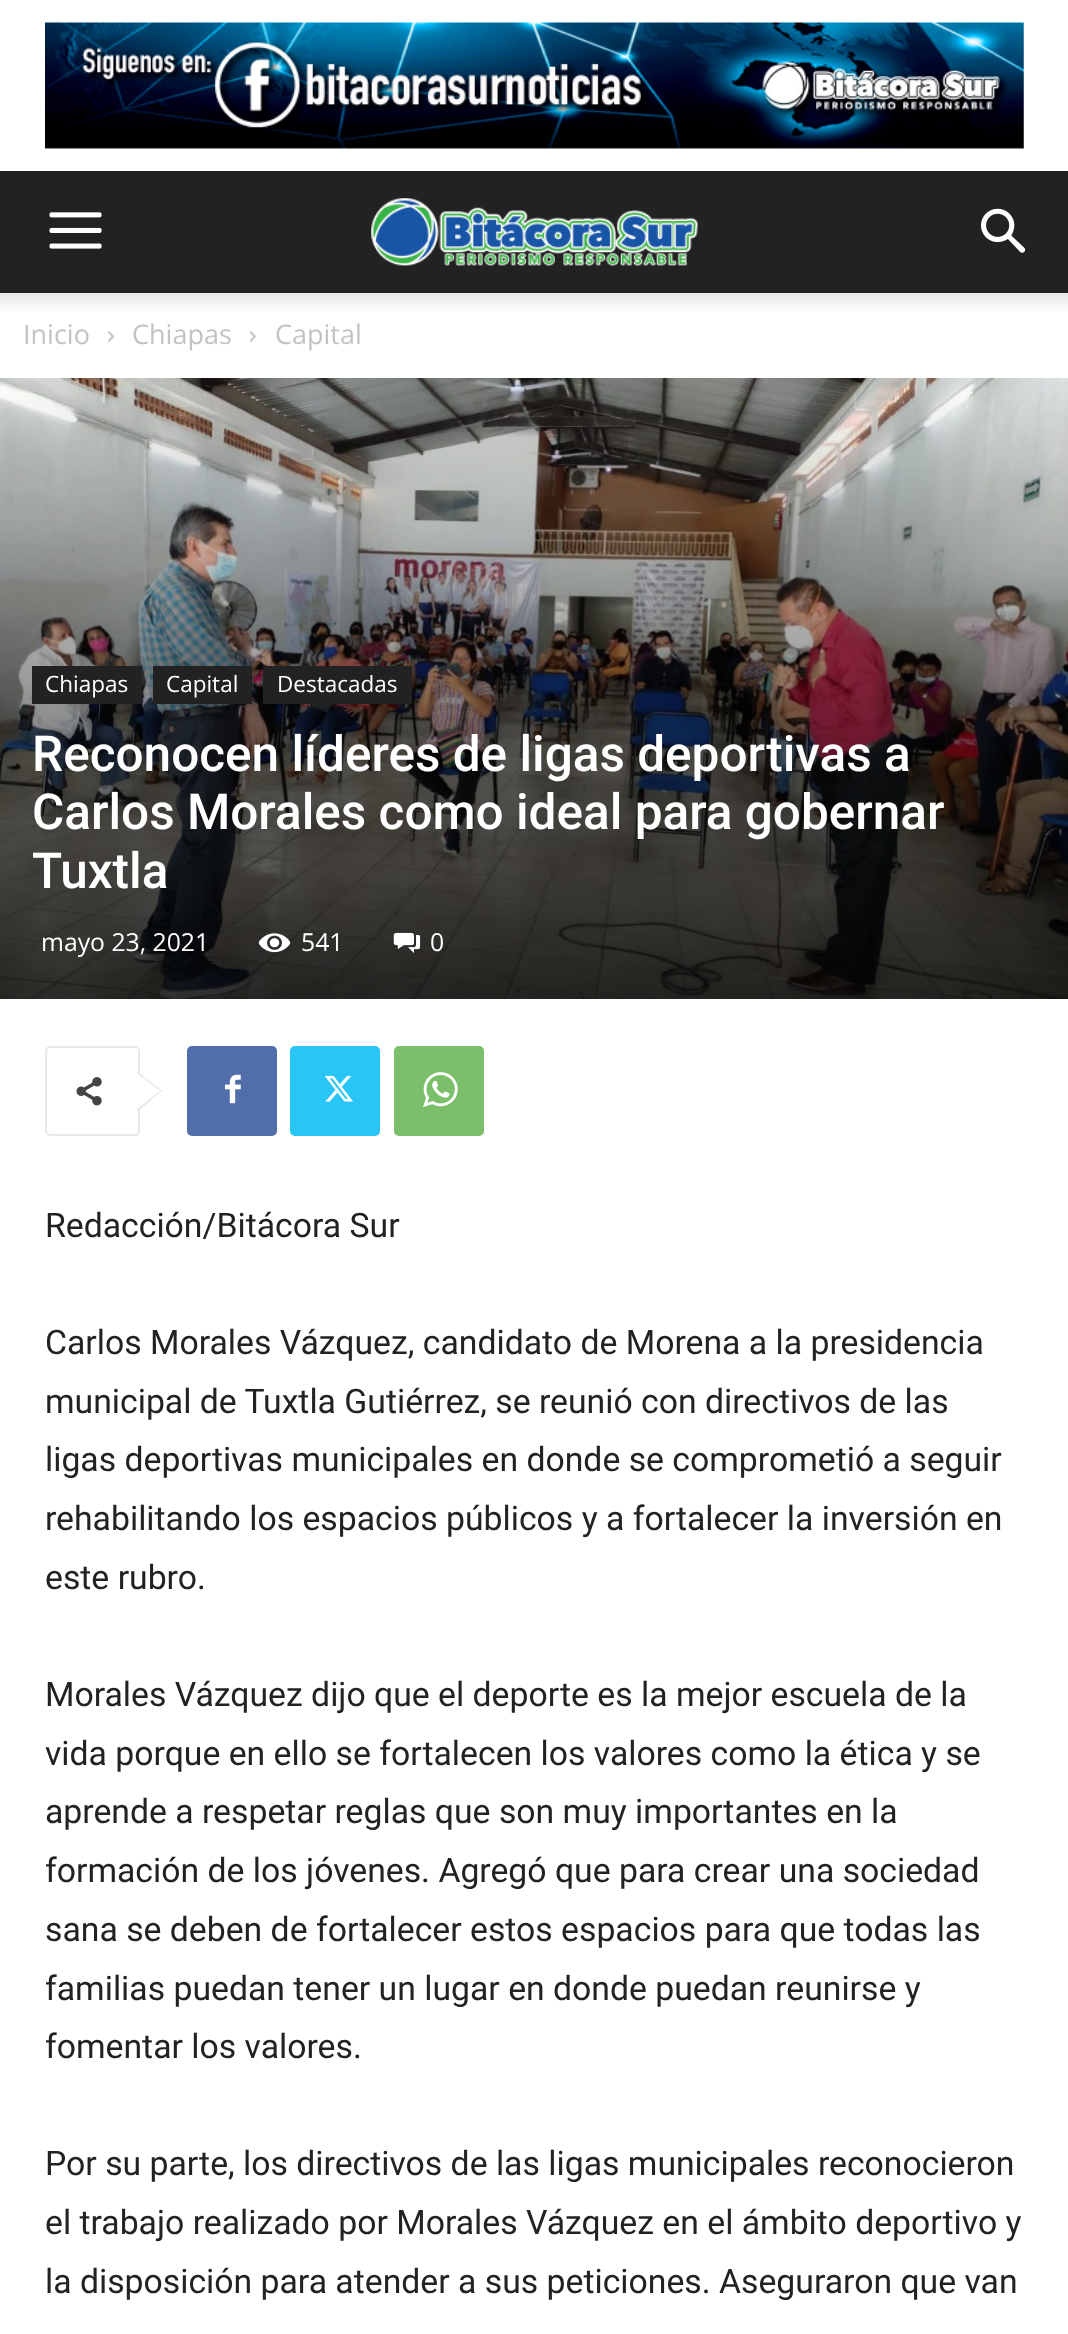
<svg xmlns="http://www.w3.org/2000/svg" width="1068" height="2334">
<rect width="100%" height="100%" fill="#fff"/>
<image x="45" y="22" width="979" height="127" href="media/1.png"/>
<rect y="171" width="1068" height="122" fill="#222"/>
<image x="49" y="212" width="53" height="37" href="media/2.png"/>
<image x="371" y="198" width="327" height="68" href="media/3.png"/>
<image x="981" y="208" width="45" height="45" href="media/4.png"/>
<image x="0" y="293" width="1068" height="19" href="media/5.png"/>
<text x="23" y="344" style="font-family:Open Sans;font-size:27px;fill:#c3c3c3">Inicio</text>
<image x="108" y="331" width="6" height="11" href="media/6.png"/>
<text x="132" y="344" style="font-family:Open Sans;font-size:27px;fill:#c3c3c3">Chiapas</text>
<image x="249" y="331" width="7" height="11" href="media/7.png"/>
<text x="275" y="344" style="font-family:Open Sans;font-size:27px;fill:#c3c3c3">Capital</text>
<image x="0" y="378" width="1068" height="621" href="media/8.png"/>
<rect x="32" y="666" width="110" height="38" fill="#222"/>
<text x="45" y="692" style="font-family:Open Sans;font-size:22.5px;fill:#fff">Chiapas</text>
<rect x="153" y="666" width="99" height="38" fill="#222"/>
<text x="166" y="692" style="font-family:Open Sans;font-size:22.5px;fill:#fff">Capital</text>
<rect x="263" y="666" width="149" height="38" fill="#222"/>
<text x="277" y="692" style="font-family:Open Sans;font-size:22.5px;fill:#fff">Destacadas</text>
<text x="32" y="771" style="font-family:Roboto;font-size:49.5px;font-weight:500;fill:#fff">Reconocen líderes de ligas deportivas a</text>
<text x="32" y="829" style="font-family:Roboto;font-size:49.5px;font-weight:500;fill:#fff">Carlos Morales como ideal para gobernar</text>
<text x="32" y="888" style="font-family:Roboto;font-size:49.5px;font-weight:500;fill:#fff">Tuxtla</text>
<text x="41" y="951" style="font-family:Open Sans;font-size:24.75px;fill:#fff">mayo 23, 2021</text>
<image x="258" y="933" width="33" height="20" href="media/9.png"/>
<text x="301" y="951" style="font-family:Open Sans;font-size:24.75px;fill:#fff">541</text>
<image x="393" y="932" width="28" height="21" href="media/10.png"/>
<text x="430" y="951" style="font-family:Open Sans;font-size:24.75px;fill:#fff">0</text>
<rect x="46" y="1047" width="93" height="88" rx="4" fill="none" stroke="#e9e9e9" stroke-width="2"/>
<path d="M137 1112v-41l25 20z" fill="#e9e9e9"/>
<image x="76" y="1077" width="26" height="29" href="media/11.png"/>
<path d="M137 1109v-36l23 18z" fill="#fff"/>
<rect x="187" y="1046" width="90" height="90" rx="5" fill="#516eab"/>
<image x="225" y="1074" width="16" height="30" href="media/12.png"/>
<rect x="290" y="1046" width="90" height="90" rx="5" fill="#29c5f6"/>
<image x="324" y="1075" width="29" height="27" href="media/13.png"/>
<rect x="394" y="1046" width="90" height="90" rx="5" fill="#7bbf6a"/>
<image x="423" y="1072" width="35" height="35" href="media/14.png"/>
<text x="45" y="1237" style="font-family:Roboto;font-size:33.75px;fill:#222">Redacción/Bitácora Sur</text>
<text x="45" y="1354" style="font-family:Roboto;font-size:33.75px;fill:#222">Carlos Morales Vázquez, candidato de Morena a la presidencia</text>
<text x="45" y="1413" style="font-family:Roboto;font-size:33.75px;fill:#222">municipal de Tuxtla Gutiérrez, se reunió con directivos de las</text>
<text x="45" y="1471" style="font-family:Roboto;font-size:33.75px;fill:#222">ligas deportivas municipales en donde se comprometió a seguir</text>
<text x="45" y="1530" style="font-family:Roboto;font-size:33.75px;fill:#222">rehabilitando los espacios públicos y a fortalecer la inversión en</text>
<text x="45" y="1589" style="font-family:Roboto;font-size:33.75px;fill:#222">este rubro.</text>
<text x="45" y="1706" style="font-family:Roboto;font-size:33.75px;fill:#222">Morales Vázquez dijo que el deporte es la mejor escuela de la</text>
<text x="45" y="1765" style="font-family:Roboto;font-size:33.75px;fill:#222">vida porque en ello se fortalecen los valores como la ética y se</text>
<text x="45" y="1823" style="font-family:Roboto;font-size:33.75px;fill:#222">aprende a respetar reglas que son muy importantes en la</text>
<text x="45" y="1882" style="font-family:Roboto;font-size:33.75px;fill:#222">formación de los jóvenes. Agregó que para crear una sociedad</text>
<text x="45" y="1941" style="font-family:Roboto;font-size:33.75px;fill:#222">sana se deben de fortalecer estos espacios para que todas las</text>
<text x="45" y="2000" style="font-family:Roboto;font-size:33.75px;fill:#222">familias puedan tener un lugar en donde puedan reunirse y</text>
<text x="45" y="2058" style="font-family:Roboto;font-size:33.75px;fill:#222">fomentar los valores.</text>
<text x="45" y="2175" style="font-family:Roboto;font-size:33.75px;fill:#222">Por su parte, los directivos de las ligas municipales reconocieron</text>
<text x="45" y="2234" style="font-family:Roboto;font-size:33.75px;fill:#222">el trabajo realizado por Morales Vázquez en el ámbito deportivo y</text>
<text x="45" y="2293" style="font-family:Roboto;font-size:33.75px;fill:#222">la disposición para atender a sus peticiones. Aseguraron que van</text>
</svg>
